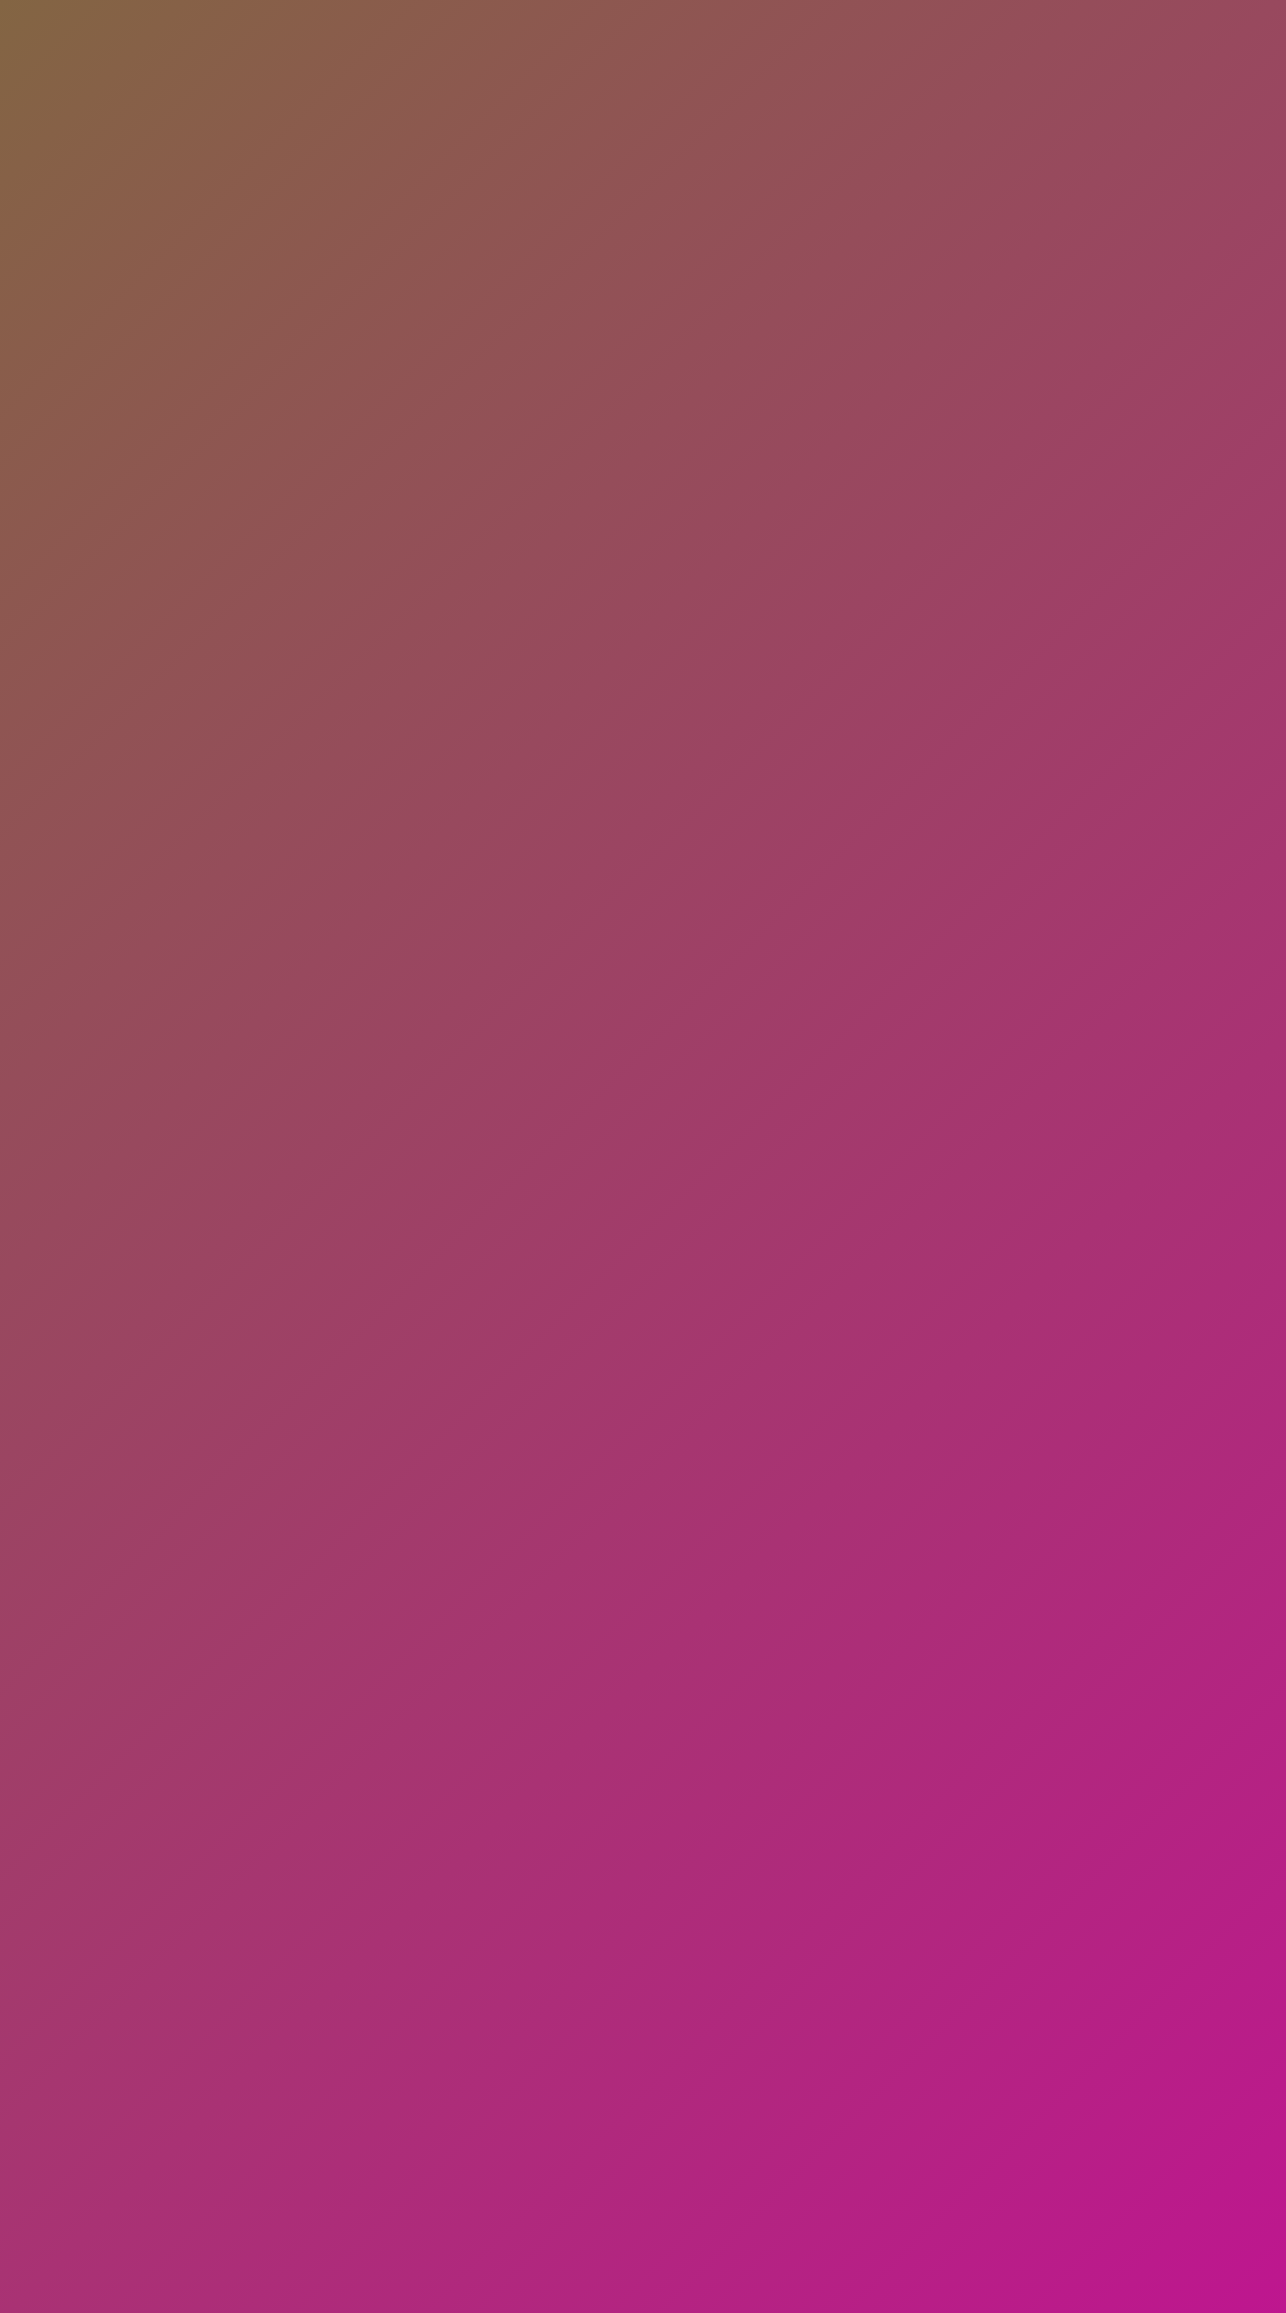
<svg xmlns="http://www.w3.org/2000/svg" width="1286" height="2313">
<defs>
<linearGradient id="g1" gradientUnits="userSpaceOnUse" x1="-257" y1="257" x2="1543" y2="2056"><stop offset="0" stop-color="#836543"/><stop offset="1" stop-color="#be168f"/></linearGradient>
</defs>
<rect width="100%" height="100%" fill="#fff"/>
<rect width="1286" height="2313" fill="url(#g1)"/>
</svg>
